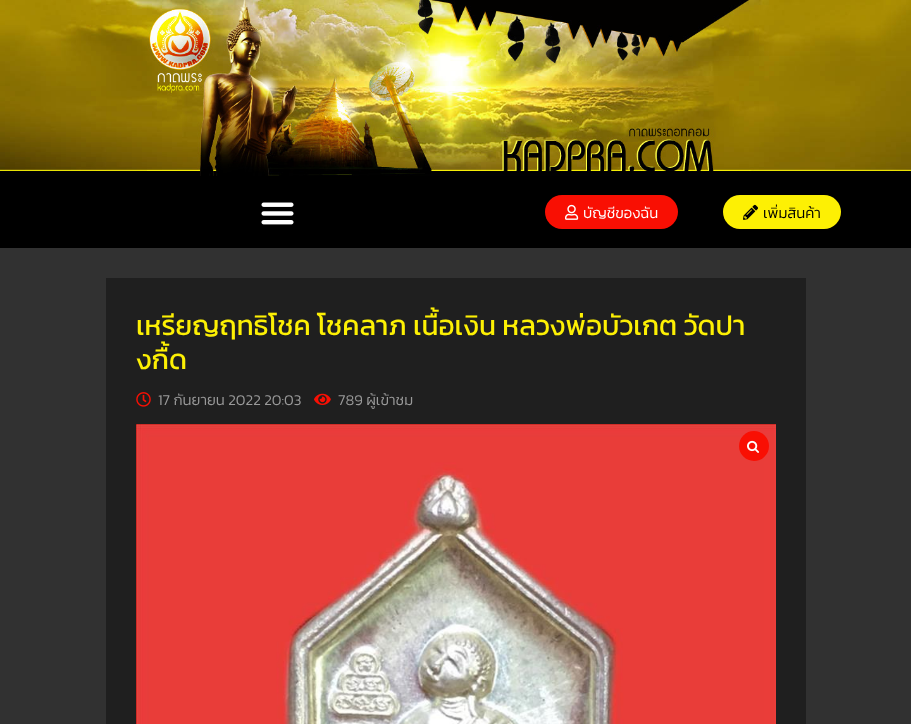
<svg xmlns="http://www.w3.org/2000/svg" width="911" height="724">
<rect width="100%" height="100%" fill="#313131"/>
<image x="0" y="0" width="911" height="176" href="media/1.png"/>
<rect y="176" width="911" height="72" fill="#000"/>
<image x="261" y="202" width="33" height="23" href="media/2.png"/>
<rect x="545" y="195" width="133" height="34" rx="17" fill="#f90f03"/>
<image x="565" y="204" width="14" height="16" href="media/3.png"/>
<text x="583" y="218" style="font-family:Kanit;font-size:15px;font-weight:300;fill:#fff">บัญชีของฉัน</text>
<rect x="723" y="195" width="118" height="34" rx="17" fill="#fdf004"/>
<image x="743" y="204" width="15" height="16" href="media/4.png"/>
<text x="763" y="218" style="font-family:Kanit;font-size:15px;font-weight:300;fill:#000">เพิ่มสินค้า</text>
<rect x="106" y="278" width="700" height="446" fill="#1f1f1f"/>
<text x="136" y="335" style="font-family:Kanit;font-size:28px;fill:#fdf004">เหรียญฤทธิโชค โชคลาภ เนื้อเงิน หลวงพ่อบัวเกต วัดปา</text>
<text x="136" y="369" style="font-family:Kanit;font-size:28px;fill:#fdf004">งกื้ด</text>
<image x="136" y="392" width="15" height="15" href="media/5.png"/>
<text x="158" y="405" style="font-family:Kanit;font-size:15px;font-weight:300;fill:#999">17 กันยายน 2022 20:03</text>
<image x="314" y="393" width="17" height="12" href="media/6.png"/>
<text x="338" y="405" style="font-family:Kanit;font-size:15px;font-weight:300;fill:#999">789 ผู้เข้าชม</text>
<image x="136" y="424" width="640" height="300" href="media/7.png"/>
<circle cx="754" cy="446" r="15" fill="#f90f03"/>
<image x="747" y="440" width="12" height="13" href="media/8.png"/>
</svg>
